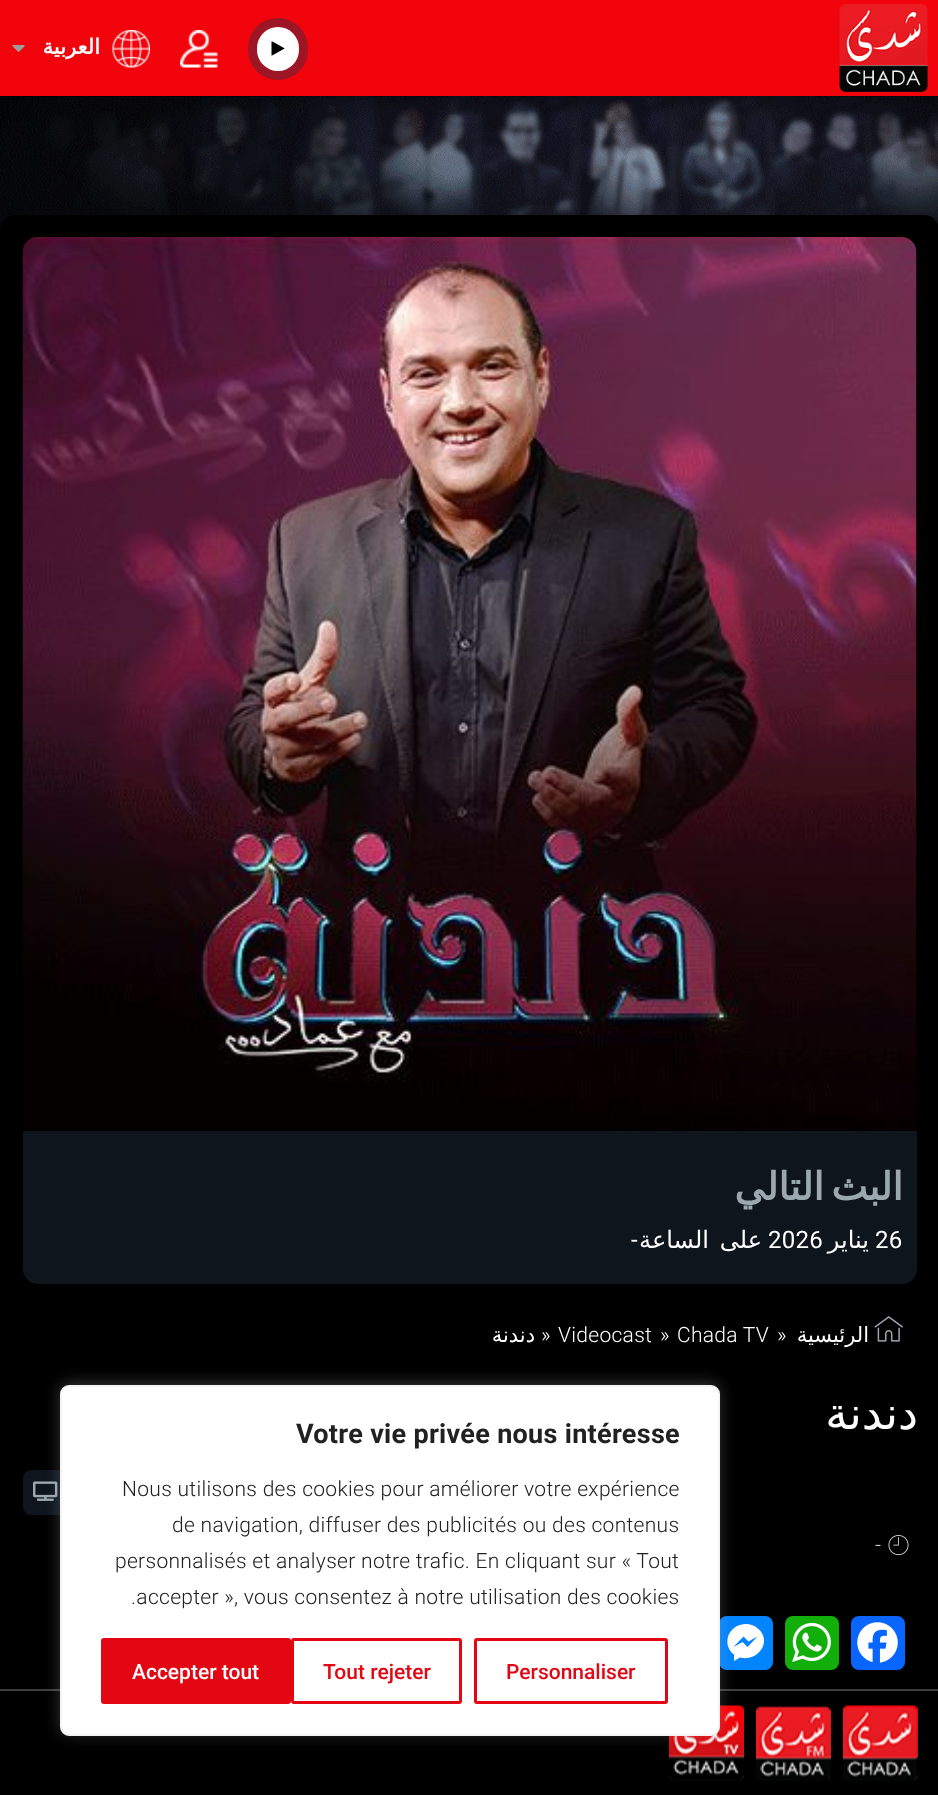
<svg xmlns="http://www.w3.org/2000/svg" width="938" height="1795">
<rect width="100%" height="100%" fill="#f1040b"/>
<image x="12" y="45" width="13" height="7" href="media/1.png"/>
<text x="100" y="54" style="font-family:DejaVu Sans;font-size:21px;font-weight:bold;letter-spacing:0.3px;direction:rtl;fill:#fff">العربية</text>
<image x="112" y="30" width="38" height="38" href="media/2.png"/>
<image x="180" y="30" width="38" height="38" href="media/3.png"/>
<rect x="248" y="18" width="60" height="62" rx="30" fill="#9c1625"/>
<rect x="257" y="27" width="42" height="44" rx="21" fill="#fff"/>
<image x="271" y="41" width="14" height="15" href="media/4.png"/>
<image x="839" y="4" width="89" height="88" href="media/5.png"/>
<image x="0" y="96" width="938" height="134" href="media/6.png"/>
<rect y="215" width="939" height="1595" rx="15" fill="#000"/>
<image x="22" y="237" width="895" height="894" href="media/7.png"/>
<path d="M23 1131h894v138c0 8.5-6.5 15-15 15h-864c-8.5 0-15-6.5-15-15z" fill="#0e151c"/>
<text x="903" y="1200" word-spacing="-5" style="font-family:DejaVu Sans;font-size:38.5px;font-weight:bold;letter-spacing:0.3px;direction:rtl;fill:#9ca8b0">البث التالي</text>
<text x="631" y="1248" style="font-family:Roboto;font-size:24px;letter-spacing:0.3px;fill:#fff">-</text>
<text x="709" y="1248" style="font-family:DejaVu Sans;font-size:24px;letter-spacing:0.3px;direction:rtl;fill:#fff">الساعة</text>
<text x="762" y="1248" style="font-family:DejaVu Sans;font-size:24px;letter-spacing:0.3px;direction:rtl;fill:#fff">على</text>
<text x="768" y="1248" style="font-family:Roboto;font-size:24px;letter-spacing:0.3px;fill:#fff">2026</text>
<text x="869" y="1248" style="font-family:DejaVu Sans;font-size:24px;letter-spacing:0.3px;direction:rtl;fill:#fff">يناير</text>
<text x="875" y="1248" style="font-family:Roboto;font-size:24px;letter-spacing:0.3px;fill:#fff">26</text>
<text x="535" y="1342" style="font-family:DejaVu Sans;font-size:21px;letter-spacing:0.3px;direction:rtl;fill:#fff">دندنة</text>
<text x="541" y="1342" style="font-family:Roboto;font-size:21px;font-weight:300;letter-spacing:0.3px;fill:#fff">»</text>
<text x="558" y="1342" style="font-family:Roboto;font-size:21px;font-weight:300;letter-spacing:0.3px;fill:#fff">Videocast</text>
<text x="660" y="1342" style="font-family:Roboto;font-size:21px;font-weight:300;letter-spacing:0.3px;fill:#fff">»</text>
<text x="677" y="1342" style="font-family:Roboto;font-size:21px;font-weight:300;letter-spacing:0.3px;fill:#fff">Chada TV</text>
<text x="777" y="1342" style="font-family:Roboto;font-size:21px;font-weight:300;letter-spacing:0.3px;fill:#fff">»</text>
<text x="869" y="1342" style="font-family:DejaVu Sans;font-size:21px;letter-spacing:0.3px;direction:rtl;fill:#fff">الرئيسية</text>
<image x="874" y="1316" width="29" height="26" href="media/8.png"/>
<text x="918" y="1429" style="font-family:DejaVu Sans;font-size:45px;letter-spacing:0.3px;direction:rtl;fill:#fff">دندنة</text>
<rect x="23" y="1470" width="223" height="45" rx="8" fill="#0e151c"/>
<image x="33" y="1481" width="25" height="20" href="media/9.png"/>
<text x="875" y="1552" style="font-family:Roboto;font-size:21px;font-weight:300;letter-spacing:0.3px;fill:#dbdbdb">-</text>
<image x="888" y="1535" width="21" height="21" href="media/10.png"/>
<rect x="719" y="1616" width="54" height="54" rx="8" fill="#0084ff"/>
<path d="M745.5 1624c-16.5 0-25 20-11.5 30.5v6.5l6-3.5c17.5 5 32.5-15.5 18.5-28.5c-3.5-3.5-8-5-13-5m2 23l-5-5l-9 5l10-10.5l5 5l9-5z" fill="#fff"/>
<rect x="785" y="1616" width="54" height="54" rx="8" fill="#12af0a"/>
<image x="792" y="1622" width="39" height="40" href="media/11.png"/>
<rect x="851" y="1616" width="54" height="54" rx="8" fill="#0866ff"/>
<image x="857" y="1622" width="41" height="41" href="media/12.png"/>
<rect y="1689" width="938" height="2" fill="#3e3e3e"/>
<image x="669" y="1705" width="75" height="76" href="media/13.png"/>
<rect x="60" y="1383" width="660" height="351" rx="9" fill="#acabab4d" filter="blur(7.5px)"/>
<rect x="61" y="1386" width="658" height="349" rx="8" fill="#fff" stroke="#f4f4f4" stroke-width="2"/>
<text x="296" y="1443" style="font-family:Roboto;font-size:27px;font-weight:bold;letter-spacing:0.3px;fill:#212121">Votre vie privée nous intéresse</text>
<text x="122" y="1496" style="font-family:Roboto;font-size:21px;font-weight:300;letter-spacing:0.3px;fill:#212121">Nous utilisons des cookies pour améliorer votre expérience</text>
<text x="172" y="1532" style="font-family:Roboto;font-size:21px;font-weight:300;letter-spacing:0.3px;fill:#212121">de navigation, diffuser des publicités ou des contenus</text>
<text x="115" y="1568" style="font-family:Roboto;font-size:21px;font-weight:300;letter-spacing:0.3px;fill:#212121">personnalisés et analyser notre trafic. En cliquant sur « Tout</text>
<text x="131" y="1604" style="font-family:Roboto;font-size:21px;font-weight:300;letter-spacing:0.3px;fill:#212121">.accepter », vous consentez à notre utilisation des cookies</text>
<rect x="102.5" y="1639.5" width="187" height="63" rx="1.5" fill="#e30613" stroke="#e30613" stroke-width="3"/>
<text x="132" y="1679" style="font-family:Roboto;font-size:21px;font-weight:500;fill:#fff">Accepter tout</text>
<rect x="292.5" y="1639.5" width="168" height="63" rx="1.5" fill="none" stroke="#e30613" stroke-width="3"/>
<text x="323" y="1679" style="font-family:Roboto;font-size:21px;font-weight:500;fill:#e30613">Tout rejeter</text>
<rect x="475.5" y="1639.5" width="191" height="63" rx="1.5" fill="none" stroke="#e30613" stroke-width="3"/>
<text x="506" y="1679" style="font-family:Roboto;font-size:21px;font-weight:500;fill:#e30613">Personnaliser</text>
<image x="756" y="1706" width="75" height="75" href="media/14.png"/>
<image x="843" y="1705" width="75" height="76" href="media/15.png"/>
</svg>
